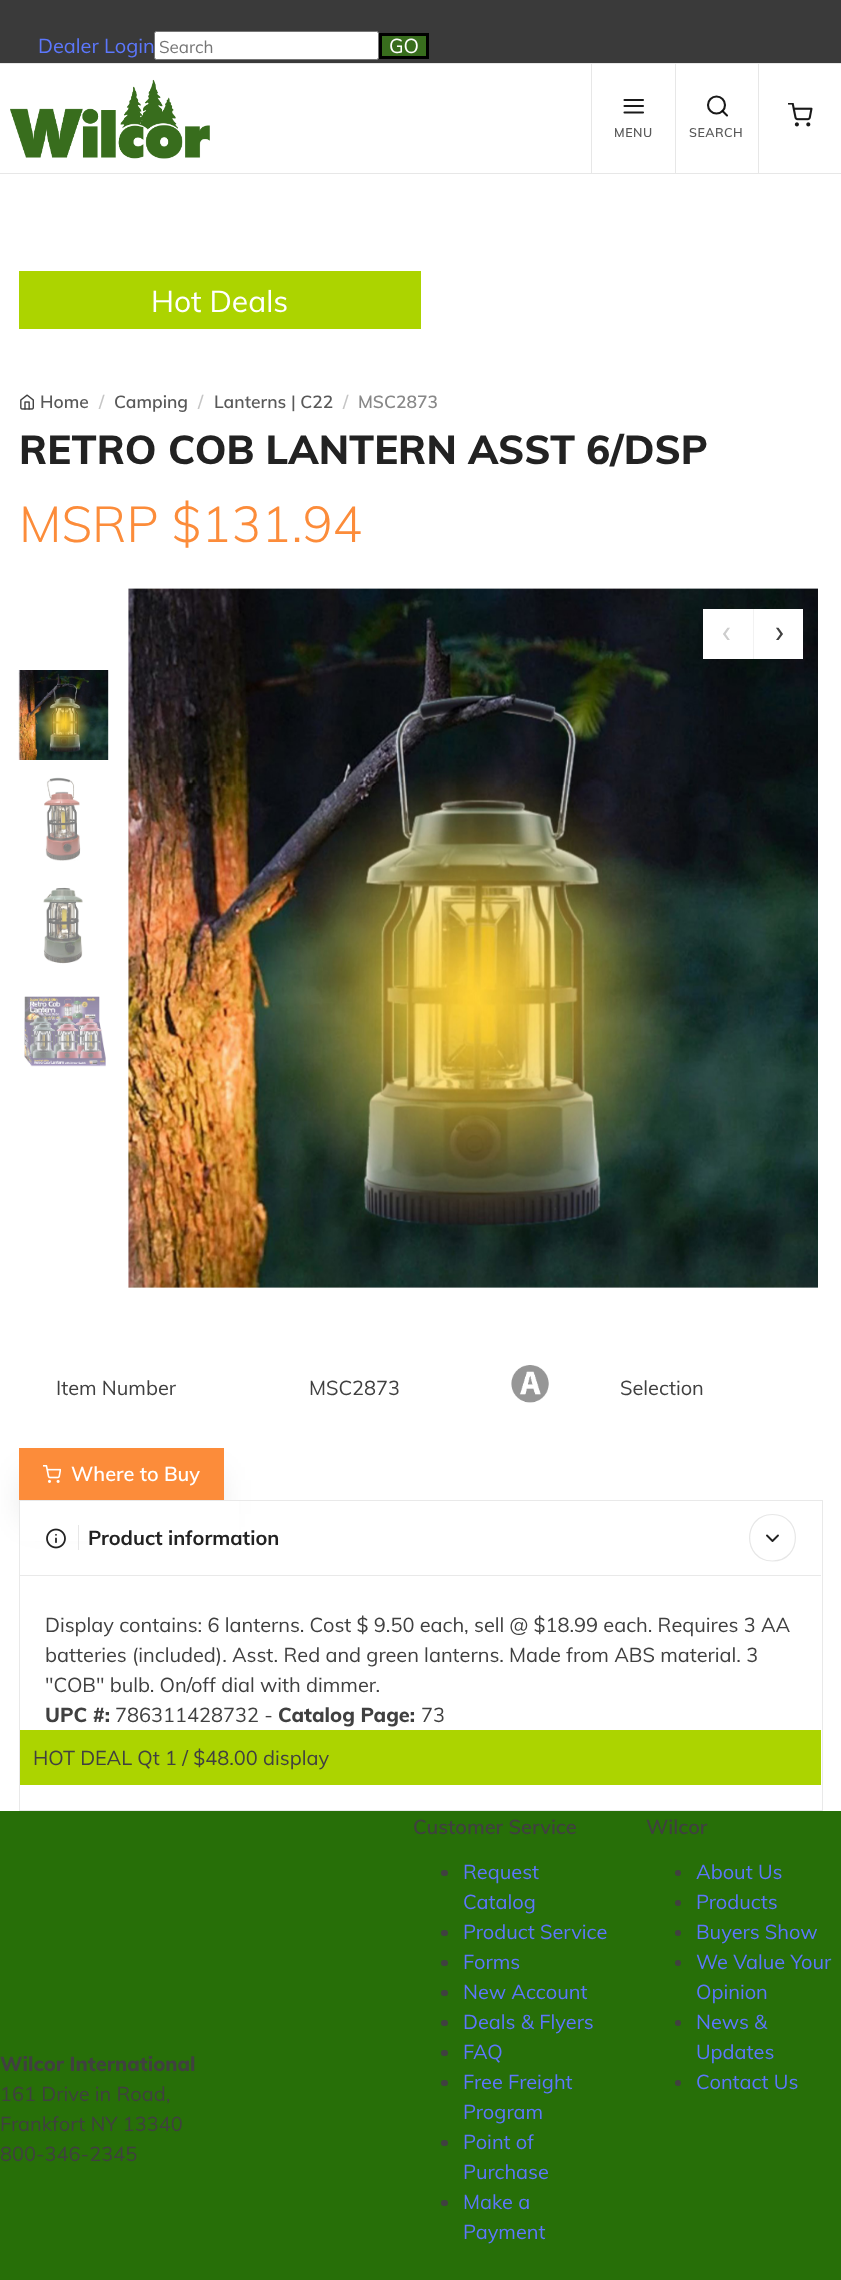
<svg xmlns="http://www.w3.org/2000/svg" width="841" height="2280">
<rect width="100%" height="100%" fill="#fff"/>
<rect width="841" height="63" fill="#3a3a3a"/>
<text x="38" y="53" style="font-family:Muli;font-size:20px;fill:#5c77fc">Dealer Login</text>
<rect x="154.5" y="31.5" width="224" height="28" rx="2" fill="#fff" stroke="#767676"/>
<text x="159" y="53" style="font-family:Muli;font-size:17px;fill:#757575">Search</text>
<rect x="380.5" y="34.5" width="47" height="23" fill="#386d1d" stroke="#000" stroke-width="3"/>
<text x="389" y="53" style="font-family:Muli;font-size:20px;fill:#fff">GO</text>
<rect y="63" width="841" height="1" fill="#e7e7e7"/>
<rect y="173" width="841" height="1" fill="#e7e7e7"/>
<image x="10" y="79" width="200" height="80" href="media/1.png"/>
<rect x="591" y="64" width="1" height="109" fill="#e7e7e7"/>
<path d="M624.5 106h18.5m-18.5-6h18.5m-18.5 12.5h18.5" fill="none" stroke="#1a1a1a" stroke-width="2.1" stroke-linecap="round" stroke-linejoin="round"/>
<text x="614" y="137" style="font-family:Muli;font-size:12.5px;font-weight:600;letter-spacing:0.5px;fill:#595959">MENU</text>
<rect x="675" y="64" width="1" height="109" fill="#e7e7e7"/>
<circle cx="716.5" cy="105" r="8.5" fill="none" stroke="#1a1a1a" stroke-width="2.1"/>
<path d="M727 115.5l-4.5-4.5" fill="none" stroke="#000000e6" stroke-width="2.1" stroke-linecap="round" stroke-linejoin="round"/>
<text x="689" y="137" style="font-family:Muli;font-size:12.5px;font-weight:600;letter-spacing:0.5px;fill:#595959">SEARCH</text>
<rect x="758" y="64" width="1" height="109" fill="#e7e7e7"/>
<image x="788" y="103" width="25" height="24" href="media/2.png"/>
<rect x="19" y="271" width="402" height="58" fill="#acd400"/>
<text x="151" y="312" style="font-family:Muli;font-size:30px;fill:#fff">Hot Deals</text>
<image x="20" y="394" width="14" height="16" href="media/3.png"/>
<text x="40" y="408" style="font-family:Muli;font-size:17.5px;font-weight:600;fill:#595959">Home</text>
<text x="99" y="408" style="font-family:Muli;font-size:17.5px;font-weight:600;fill:#c5c5c5">/</text>
<text x="114" y="408" style="font-family:Muli;font-size:17.5px;font-weight:600;fill:#595959">Camping</text>
<text x="198" y="408" style="font-family:Muli;font-size:17.5px;font-weight:600;fill:#c5c5c5">/</text>
<text x="214" y="408" style="font-family:Muli;font-size:17.5px;font-weight:600;fill:#595959">Lanterns | C22</text>
<text x="343" y="408" style="font-family:Muli;font-size:17.5px;font-weight:600;fill:#c5c5c5">/</text>
<text x="358" y="408" style="font-family:Muli;font-size:17.5px;font-weight:600;fill:#888">MSC2873</text>
<text x="19" y="464" style="font-family:Muli;font-size:40px;font-weight:800;fill:#222">RETRO COB LANTERN ASST 6/DSP</text>
<text x="19" y="542" style="font-family:Muli;font-size:50px;font-weight:300;fill:#fc8c3a">MSRP $131.94</text>
<image x="128" y="588" width="690" height="700" href="media/4.png"/>
<rect x="703" y="609" width="50" height="50" fill="#fff"/>
<text x="722" y="643" style="font-family:Muli;font-size:34px;fill:#cdcdcd">‹</text>
<rect x="754" y="609" width="49" height="50" fill="#fff"/>
<rect x="753" y="609" width="1" height="50" fill="#f2f2f2"/>
<text x="775" y="643" style="font-family:Muli;font-size:34px;fill:#404040">›</text>
<image x="18" y="670" width="91" height="90" href="media/5.png"/>
<image x="44" y="777" width="37" height="84" href="media/6.png"/>
<image x="43" y="887" width="40" height="77" href="media/7.png"/>
<image x="24" y="996" width="82" height="71" href="media/8.png"/>
<text x="56" y="1395" style="font-family:Muli;font-size:20px;fill:#404040">Item Number</text>
<text x="309" y="1395" style="font-family:Muli;font-size:20px;fill:#404040">MSC2873</text>
<image x="511" y="1365" width="38" height="38" href="media/9.png"/>
<text x="620" y="1395" style="font-family:Muli;font-size:20px;fill:#404040">Selection</text>
<rect x="26" y="1479" width="190" height="36" fill="#00000026" filter="blur(17.5px)"/>
<rect x="19" y="1448" width="205" height="52" fill="#fc8c3a"/>
<image x="43" y="1465" width="18" height="18" href="media/10.png"/>
<text x="71" y="1481" style="font-family:Muli;font-size:20px;font-weight:600;fill:#fff">Where to Buy</text>
<rect x="20" y="1501" width="219" height="40" fill="#fff"/>
<rect x="19.5" y="1500.5" width="803" height="310" fill="none" stroke="#e9e9e9"/>
<rect x="20" y="1575" width="801" height="1" fill="#e9e9e9"/>
<rect x="78" y="1525" width="1" height="25" fill="#e7e7e7"/>
<image x="46" y="1528" width="20" height="21" href="media/11.png"/>
<text x="88" y="1545" style="font-family:Muli;font-size:20px;font-weight:bold;fill:#222">Product information</text>
<path d="M772.5 1561c-30.5 0-30.5-46.5 0-46.5c30.5 0 30.5 46.5 0 46.5z" fill="none" stroke="#e7e7e7" stroke-width="1.2"/>
<path d="M767 1535.5l5.5 5.5l5.5-5.5" fill="none" stroke="#222" stroke-width="1.9" stroke-linecap="round" stroke-linejoin="round"/>
<text x="45" y="1632" style="font-family:Muli;font-size:20px;fill:#404040">Display contains: 6 lanterns. Cost $ 9.50 each, sell @ $18.99 each. Requires 3 AA</text>
<text x="45" y="1662" style="font-family:Muli;font-size:20px;fill:#404040">batteries (included). Asst. Red and green lanterns. Made from ABS material. 3</text>
<text x="45" y="1692" style="font-family:Muli;font-size:20px;fill:#404040">"COB" bulb. On/off dial with dimmer.</text>
<text x="45" y="1722" style="font-family:Muli;font-size:20px;font-weight:800;fill:#404040">UPC #:</text>
<text x="115" y="1722" style="font-family:Muli;font-size:20px;fill:#404040">786311428732 -</text>
<text x="278" y="1722" style="font-family:Muli;font-size:20px;font-weight:800;fill:#404040">Catalog Page:</text>
<text x="421" y="1722" style="font-family:Muli;font-size:20px;fill:#404040">73</text>
<rect x="20" y="1730" width="801" height="55" fill="#acd400"/>
<text x="33" y="1765" style="font-family:Muli;font-size:20px;fill:#404040">HOT DEAL Qt 1 / $48.00 display</text>
<rect y="1811" width="841" height="469" fill="#276f08"/>
<text x="413" y="1834" style="font-family:Muli;font-size:20px;font-weight:600;fill:#404040">Customer Service</text>
<rect x="441" y="1870" width="7" height="6" rx="3" fill="#404040"/>
<text x="463" y="1879" style="font-family:Muli;font-size:20px;fill:#5c77fc">Request</text>
<text x="463" y="1909" style="font-family:Muli;font-size:20px;fill:#5c77fc">Catalog</text>
<rect x="441" y="1930" width="7" height="6" rx="3" fill="#404040"/>
<text x="463" y="1939" style="font-family:Muli;font-size:20px;fill:#5c77fc">Product Service</text>
<rect x="441" y="1960" width="7" height="6" rx="3" fill="#404040"/>
<text x="463" y="1969" style="font-family:Muli;font-size:20px;fill:#5c77fc">Forms</text>
<rect x="441" y="1990" width="7" height="6" rx="3" fill="#404040"/>
<text x="463" y="1999" style="font-family:Muli;font-size:20px;fill:#5c77fc">New Account</text>
<rect x="441" y="2020" width="7" height="6" rx="3" fill="#404040"/>
<text x="463" y="2029" style="font-family:Muli;font-size:20px;fill:#5c77fc">Deals &amp; Flyers</text>
<rect x="441" y="2050" width="7" height="6" rx="3" fill="#404040"/>
<text x="463" y="2059" style="font-family:Muli;font-size:20px;fill:#5c77fc">FAQ</text>
<rect x="441" y="2080" width="7" height="6" rx="3" fill="#404040"/>
<text x="463" y="2089" style="font-family:Muli;font-size:20px;fill:#5c77fc">Free Freight</text>
<text x="463" y="2119" style="font-family:Muli;font-size:20px;fill:#5c77fc">Program</text>
<rect x="441" y="2140" width="7" height="6" rx="3" fill="#404040"/>
<text x="463" y="2149" style="font-family:Muli;font-size:20px;fill:#5c77fc">Point of</text>
<text x="463" y="2179" style="font-family:Muli;font-size:20px;fill:#5c77fc">Purchase</text>
<rect x="441" y="2200" width="7" height="6" rx="3" fill="#404040"/>
<text x="463" y="2209" style="font-family:Muli;font-size:20px;fill:#5c77fc">Make a</text>
<text x="463" y="2239" style="font-family:Muli;font-size:20px;fill:#5c77fc">Payment</text>
<text x="646" y="1834" style="font-family:Muli;font-size:20px;font-weight:600;fill:#404040">Wilcor</text>
<circle cx="678" cy="1873" r="3" fill="#404040"/>
<text x="696" y="1879" style="font-family:Muli;font-size:20px;fill:#5c77fc">About Us</text>
<circle cx="678" cy="1903" r="3" fill="#404040"/>
<text x="696" y="1909" style="font-family:Muli;font-size:20px;fill:#5c77fc">Products</text>
<circle cx="678" cy="1933" r="3" fill="#404040"/>
<text x="696" y="1939" style="font-family:Muli;font-size:20px;fill:#5c77fc">Buyers Show</text>
<circle cx="678" cy="1963" r="3" fill="#404040"/>
<text x="696" y="1969" style="font-family:Muli;font-size:20px;fill:#5c77fc">We Value Your</text>
<text x="696" y="1999" style="font-family:Muli;font-size:20px;fill:#5c77fc">Opinion</text>
<circle cx="678" cy="2023" r="3" fill="#404040"/>
<text x="696" y="2029" style="font-family:Muli;font-size:20px;fill:#5c77fc">News &amp;</text>
<text x="696" y="2059" style="font-family:Muli;font-size:20px;fill:#5c77fc">Updates</text>
<circle cx="678" cy="2083" r="3" fill="#404040"/>
<text x="696" y="2089" style="font-family:Muli;font-size:20px;fill:#5c77fc">Contact Us</text>
<text x="0" y="2071" style="font-family:Muli;font-size:20px;font-weight:800;fill:#404040">Wilcor International</text>
<text x="0" y="2101" style="font-family:Muli;font-size:20px;fill:#404040">161 Drive in Road,</text>
<text x="0" y="2131" style="font-family:Muli;font-size:20px;fill:#404040">Frankfort NY 13340</text>
<text x="0" y="2161" style="font-family:Muli;font-size:20px;fill:#404040">800-346-2345</text>
</svg>
